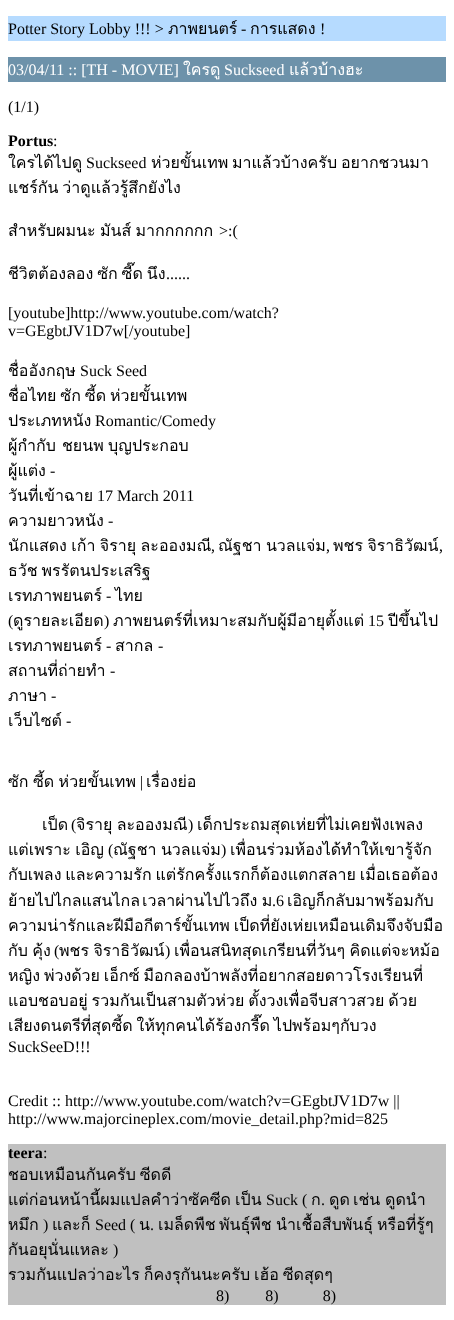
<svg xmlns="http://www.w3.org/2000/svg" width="454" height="1320">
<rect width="100%" height="100%" fill="#fff"/>
<rect x="8" y="16" width="438" height="25" fill="#b6dbff"/>
<text x="8" y="34" style="font-family:Liberation Serif;font-size:16px;fill:#000">Potter Story Lobby !!! &gt;</text>
<text x="168" y="34" style="font-family:Loma;font-size:16px;fill:#000">ภาพยนตร์</text>
<text x="241" y="34" style="font-family:Liberation Serif;font-size:16px;fill:#000">-</text>
<text x="250" y="34" style="font-family:Loma;font-size:16px;fill:#000">การแสดง</text>
<text x="320" y="34" style="font-family:Liberation Serif;font-size:16px;fill:#000">!</text>
<rect x="8" y="57" width="438" height="25" fill="#6d92aa"/>
<text x="8" y="75" style="font-family:Liberation Serif;font-size:16px;fill:#fff">03/04/11 :: [TH - MOVIE]</text>
<text x="183" y="75" style="font-family:Loma;font-size:16px;fill:#fff">ใครดู</text>
<text x="224" y="75" style="font-family:Liberation Serif;font-size:16px;fill:#fff">Suckseed</text>
<text x="289" y="75" style="font-family:Loma;font-size:16px;fill:#fff">แล้วบ้างฮะ</text>
<text x="8" y="112" style="font-family:Liberation Serif;font-size:16px;fill:#000">(1/1)</text>
<text x="8" y="146" style="font-family:Liberation Serif;font-size:16px;font-weight:bold;fill:#000">Portus</text>
<text x="53" y="146" style="font-family:Liberation Serif;font-size:16px;fill:#000">:</text>
<text x="8" y="168" style="font-family:Loma;font-size:16px;fill:#000">ใครได้ไปดู</text>
<text x="86" y="168" style="font-family:Liberation Serif;font-size:16px;fill:#000">Suckseed</text>
<text x="151" y="168" style="font-family:Loma;font-size:16px;fill:#000">ห่วยขั้นเทพ</text>
<text x="232" y="168" word-spacing="-1.5" style="font-family:Loma;font-size:16px;fill:#000">มาแล้วบ้างครับ อยากชวนมา</text>
<text x="8" y="193" word-spacing="-1.5" style="font-family:Loma;font-size:16px;fill:#000">แชร์กัน ว่าดูแล้วรู้สึกยังไง</text>
<text x="8" y="236" word-spacing="-1" style="font-family:Loma;font-size:16px;fill:#000">สำหรับผมนะ มันส์ มากกกกกก</text>
<text x="219" y="236" style="font-family:Liberation Serif;font-size:16px;fill:#000">&gt;:(</text>
<text x="8" y="279" word-spacing="-1.5" style="font-family:Loma;font-size:16px;fill:#000">ชีวิตต้องลอง ซัก ซี๊ด นึง</text>
<text x="166" y="279" style="font-family:Liberation Serif;font-size:16px;fill:#000">......</text>
<text x="8" y="318" style="font-family:Liberation Serif;font-size:16px;fill:#000">[youtube]http://www.youtube.com/watch?</text>
<text x="8" y="336" style="font-family:Liberation Serif;font-size:16px;fill:#000">v=GEgbtJV1D7w[/youtube]</text>
<text x="8" y="376" style="font-family:Loma;font-size:16px;fill:#000">ชื่ออังกฤษ</text>
<text x="80" y="376" style="font-family:Liberation Serif;font-size:16px;fill:#000">Suck Seed</text>
<text x="8" y="401" word-spacing="-1.5" style="font-family:Loma;font-size:16px;fill:#000">ชื่อไทย ซัก ซี้ด ห่วยขั้นเทพ</text>
<text x="8" y="426" style="font-family:Loma;font-size:16px;fill:#000">ประเภทหนัง</text>
<text x="95" y="426" style="font-family:Liberation Serif;font-size:16px;fill:#000">Romantic/Comedy</text>
<text x="8" y="451" style="font-family:Loma;font-size:16px;fill:#000">ผู้กำกับ</text>
<text x="62" y="451" word-spacing="-1" style="font-family:Loma;font-size:16px;fill:#000">ชยนพ บุญประกอบ</text>
<text x="8" y="476" style="font-family:Loma;font-size:16px;fill:#000">ผู้แต่ง</text>
<text x="50" y="476" style="font-family:Liberation Serif;font-size:16px;fill:#000">-</text>
<text x="8" y="501" style="font-family:Loma;font-size:16px;fill:#000">วันที่เข้าฉาย</text>
<text x="97" y="501" style="font-family:Liberation Serif;font-size:16px;fill:#000">17 March 2011</text>
<text x="8" y="526" style="font-family:Loma;font-size:16px;fill:#000">ความยาวหนัง</text>
<text x="108" y="526" style="font-family:Liberation Serif;font-size:16px;fill:#000">-</text>
<text x="8" y="551" word-spacing="-1" style="font-family:Loma;font-size:16px;fill:#000">นักแสดง เก้า จิรายุ ละอองมณี</text>
<text x="211" y="551" style="font-family:Liberation Serif;font-size:16px;fill:#000">,</text>
<text x="218" y="551" word-spacing="-1" style="font-family:Loma;font-size:16px;fill:#000">ณัฐชา นวลแจ่ม</text>
<text x="333" y="551" word-spacing="-1" style="font-family:Loma;font-size:16px;fill:#000">พชร จิราธิวัฒน์</text>
<text x="326" y="551" style="font-family:Liberation Serif;font-size:16px;fill:#000">,</text>
<text x="439" y="551" style="font-family:Liberation Serif;font-size:16px;fill:#000">,</text>
<text x="8" y="576" word-spacing="-1.5" style="font-family:Loma;font-size:16px;fill:#000">ธวัช พรรัตนประเสริฐ</text>
<text x="8" y="601" style="font-family:Loma;font-size:16px;fill:#000">เรทภาพยนตร์</text>
<text x="106" y="601" style="font-family:Liberation Serif;font-size:16px;fill:#000">-</text>
<text x="115" y="601" style="font-family:Loma;font-size:16px;fill:#000">ไทย</text>
<text x="8" y="626" style="font-family:Liberation Serif;font-size:16px;fill:#000">(</text>
<text x="13" y="626" style="font-family:Loma;font-size:16px;fill:#000">ดูรายละเอียด</text>
<text x="113" y="626" style="font-family:Loma;font-size:16px;fill:#000">ภาพยนตร์ที่เหมาะสมกับผู้มีอายุตั้งแต่</text>
<text x="368" y="626" style="font-family:Liberation Serif;font-size:16px;fill:#000">15</text>
<text x="388" y="626" style="font-family:Loma;font-size:16px;fill:#000">ปีขึ้นไป</text>
<text x="104" y="626" style="font-family:Liberation Serif;font-size:16px;fill:#000">)</text>
<text x="8" y="651" style="font-family:Loma;font-size:16px;fill:#000">เรทภาพยนตร์</text>
<text x="106" y="651" style="font-family:Liberation Serif;font-size:16px;fill:#000">-</text>
<text x="115" y="651" style="font-family:Loma;font-size:16px;fill:#000">สากล</text>
<text x="158" y="651" style="font-family:Liberation Serif;font-size:16px;fill:#000">-</text>
<text x="8" y="676" style="font-family:Loma;font-size:16px;fill:#000">สถานที่ถ่ายทำ</text>
<text x="110" y="676" style="font-family:Liberation Serif;font-size:16px;fill:#000">-</text>
<text x="8" y="701" style="font-family:Loma;font-size:16px;fill:#000">ภาษา</text>
<text x="51" y="701" style="font-family:Liberation Serif;font-size:16px;fill:#000">-</text>
<text x="8" y="726" style="font-family:Loma;font-size:16px;fill:#000">เว็บไซต์</text>
<text x="66" y="726" style="font-family:Liberation Serif;font-size:16px;fill:#000">-</text>
<text x="8" y="787" word-spacing="-1" style="font-family:Loma;font-size:16px;fill:#000">ซัก ซี้ด ห่วยขั้นเทพ</text>
<text x="140" y="787" style="font-family:Liberation Serif;font-size:16px;fill:#000">|</text>
<text x="146" y="787" style="font-family:Loma;font-size:16px;fill:#000">เรื่องย่อ</text>
<text x="42" y="830" style="font-family:Loma;font-size:16px;fill:#000">เป็ด</text>
<text x="71" y="830" style="font-family:Liberation Serif;font-size:16px;fill:#000">(</text>
<text x="76" y="830" word-spacing="-1" style="font-family:Loma;font-size:16px;fill:#000">จิรายุ ละอองมณี</text>
<text x="197" y="830" style="font-family:Loma;font-size:16px;fill:#000">เด็กประถมสุดเห่ยที่ไม่เคยฟังเพลง</text>
<text x="188" y="830" style="font-family:Liberation Serif;font-size:16px;fill:#000">)</text>
<text x="8" y="855" word-spacing="-1" style="font-family:Loma;font-size:16px;fill:#000">แต่เพราะ เอิญ</text>
<text x="108" y="855" style="font-family:Liberation Serif;font-size:16px;fill:#000">(</text>
<text x="113" y="855" word-spacing="-1" style="font-family:Loma;font-size:16px;fill:#000">ณัฐชา นวลแจ่ม</text>
<text x="230" y="855" style="font-family:Loma;font-size:16px;fill:#000">เพื่อนร่วมห้องได้ทำให้เขารู้จัก</text>
<text x="221" y="855" style="font-family:Liberation Serif;font-size:16px;fill:#000">)</text>
<text x="8" y="880" word-spacing="-1.5" style="font-family:Loma;font-size:16px;fill:#000">กับเพลง และความรัก แต่รักครั้งแรกก็ต้องแตกสลาย เมื่อเธอต้อง</text>
<text x="8" y="906" style="font-family:Loma;font-size:16px;fill:#000">ย้ายไปไกลแสนไกล</text>
<text x="142" y="906" word-spacing="-1" style="font-family:Loma;font-size:16px;fill:#000">เวลาผ่านไปไวถึง ม</text>
<text x="272" y="906" style="font-family:Liberation Serif;font-size:16px;fill:#000">.6</text>
<text x="287" y="906" style="font-family:Loma;font-size:16px;fill:#000">เอิญก็กลับมาพร้อมกับ</text>
<text x="8" y="931" word-spacing="-1.5" style="font-family:Loma;font-size:16px;fill:#000">ความน่ารักและฝีมือกีตาร์ขั้นเทพ เป็ดที่ยังเห่ยเหมือนเดิมจึงจับมือ</text>
<text x="8" y="956" word-spacing="-1" style="font-family:Loma;font-size:16px;fill:#000">กับ คุ้ง</text>
<text x="54" y="956" style="font-family:Liberation Serif;font-size:16px;fill:#000">(</text>
<text x="59" y="956" word-spacing="-1" style="font-family:Loma;font-size:16px;fill:#000">พชร จิราธิวัฒน์</text>
<text x="165" y="956" style="font-family:Liberation Serif;font-size:16px;fill:#000">)</text>
<text x="174" y="956" word-spacing="-1" style="font-family:Loma;font-size:16px;fill:#000">เพื่อนสนิทสุดเกรียนที่วันๆ คิดแต่จะหม้อ</text>
<text x="8" y="981" word-spacing="-1.5" style="font-family:Loma;font-size:16px;fill:#000">หญิง พ่วงด้วย เอ็กซ์ มือกลองบ้าพลังที่อยากสอยดาวโรงเรียนที่</text>
<text x="8" y="1006" word-spacing="-1.5" style="font-family:Loma;font-size:16px;fill:#000">แอบชอบอยู่ รวมกันเป็นสามตัวห่วย ตั้งวงเพื่อจีบสาวสวย ด้วย</text>
<text x="8" y="1031" word-spacing="-1.5" style="font-family:Loma;font-size:16px;fill:#000">เสียงดนตรีที่สุดซี้ด ให้ทุกคนได้ร้องกรี๊ด ไปพร้อมๆกับวง</text>
<text x="8" y="1052" style="font-family:Liberation Serif;font-size:16px;fill:#000">SuckSeeD!!!</text>
<text x="8" y="1106" style="font-family:Liberation Serif;font-size:16px;fill:#000">Credit :: http://www.youtube.com/watch?v=GEgbtJV1D7w ||</text>
<text x="8" y="1124" style="font-family:Liberation Serif;font-size:16px;fill:#000">http://www.majorcineplex.com/movie_detail.php?mid=825</text>
<rect x="8" y="1144" width="438" height="161" fill="#c0c0c0"/>
<text x="8" y="1158" style="font-family:Liberation Serif;font-size:16px;font-weight:bold;fill:#000">teera</text>
<text x="43" y="1158" style="font-family:Liberation Serif;font-size:16px;fill:#000">:</text>
<text x="8" y="1180" word-spacing="-1.5" style="font-family:Loma;font-size:16px;fill:#000">ชอบเหมือนกันครับ ซีดดี</text>
<text x="8" y="1205" style="font-family:Loma;font-size:16px;fill:#000">แต่ก่อนหน้านี้ผมแปลคำว่าซัคซีด</text>
<text x="235" y="1205" style="font-family:Loma;font-size:16px;fill:#000">เป็น</text>
<text x="266" y="1205" style="font-family:Liberation Serif;font-size:16px;fill:#000">Suck (</text>
<text x="311" y="1205" style="font-family:Loma;font-size:16px;fill:#000">ก</text>
<text x="321" y="1205" style="font-family:Liberation Serif;font-size:16px;fill:#000">.</text>
<text x="329" y="1205" style="font-family:Loma;font-size:16px;fill:#000">ดูด</text>
<text x="353" y="1205" style="font-family:Loma;font-size:16px;fill:#000">เช่น</text>
<text x="385" y="1205" style="font-family:Loma;font-size:16px;fill:#000">ดูดนำ</text>
<text x="8" y="1230" style="font-family:Loma;font-size:16px;fill:#000">หมึก</text>
<text x="43" y="1230" style="font-family:Liberation Serif;font-size:16px;fill:#000">)</text>
<text x="52" y="1230" style="font-family:Loma;font-size:16px;fill:#000">และก็</text>
<text x="95" y="1230" style="font-family:Liberation Serif;font-size:16px;fill:#000">Seed (</text>
<text x="139" y="1230" style="font-family:Loma;font-size:16px;fill:#000">น</text>
<text x="150" y="1230" style="font-family:Liberation Serif;font-size:16px;fill:#000">.</text>
<text x="158" y="1230" style="font-family:Loma;font-size:16px;fill:#000">เมล็ดพืช</text>
<text x="219" y="1230" style="font-family:Loma;font-size:16px;fill:#000">พันธุ์พืช</text>
<text x="276" y="1230" style="font-family:Loma;font-size:16px;fill:#000">นำเชื้อสืบพันธุ์</text>
<text x="377" y="1230" style="font-family:Loma;font-size:16px;fill:#000">หรือที่รู้ๆ</text>
<text x="8" y="1255" style="font-family:Loma;font-size:16px;fill:#000">กันอยุนั่นแหละ</text>
<text x="113" y="1255" style="font-family:Liberation Serif;font-size:16px;fill:#000">)</text>
<text x="8" y="1280" word-spacing="-1.5" style="font-family:Loma;font-size:16px;fill:#000">รวมกันแปลว่าอะไร ก็คงรุกันนะครับ เฮ้อ ซีดสุดๆ</text>
<text x="216" y="1301" style="font-family:Liberation Serif;font-size:16px;fill:#000" xml:space="preserve">8)         8)           8)</text>
</svg>
